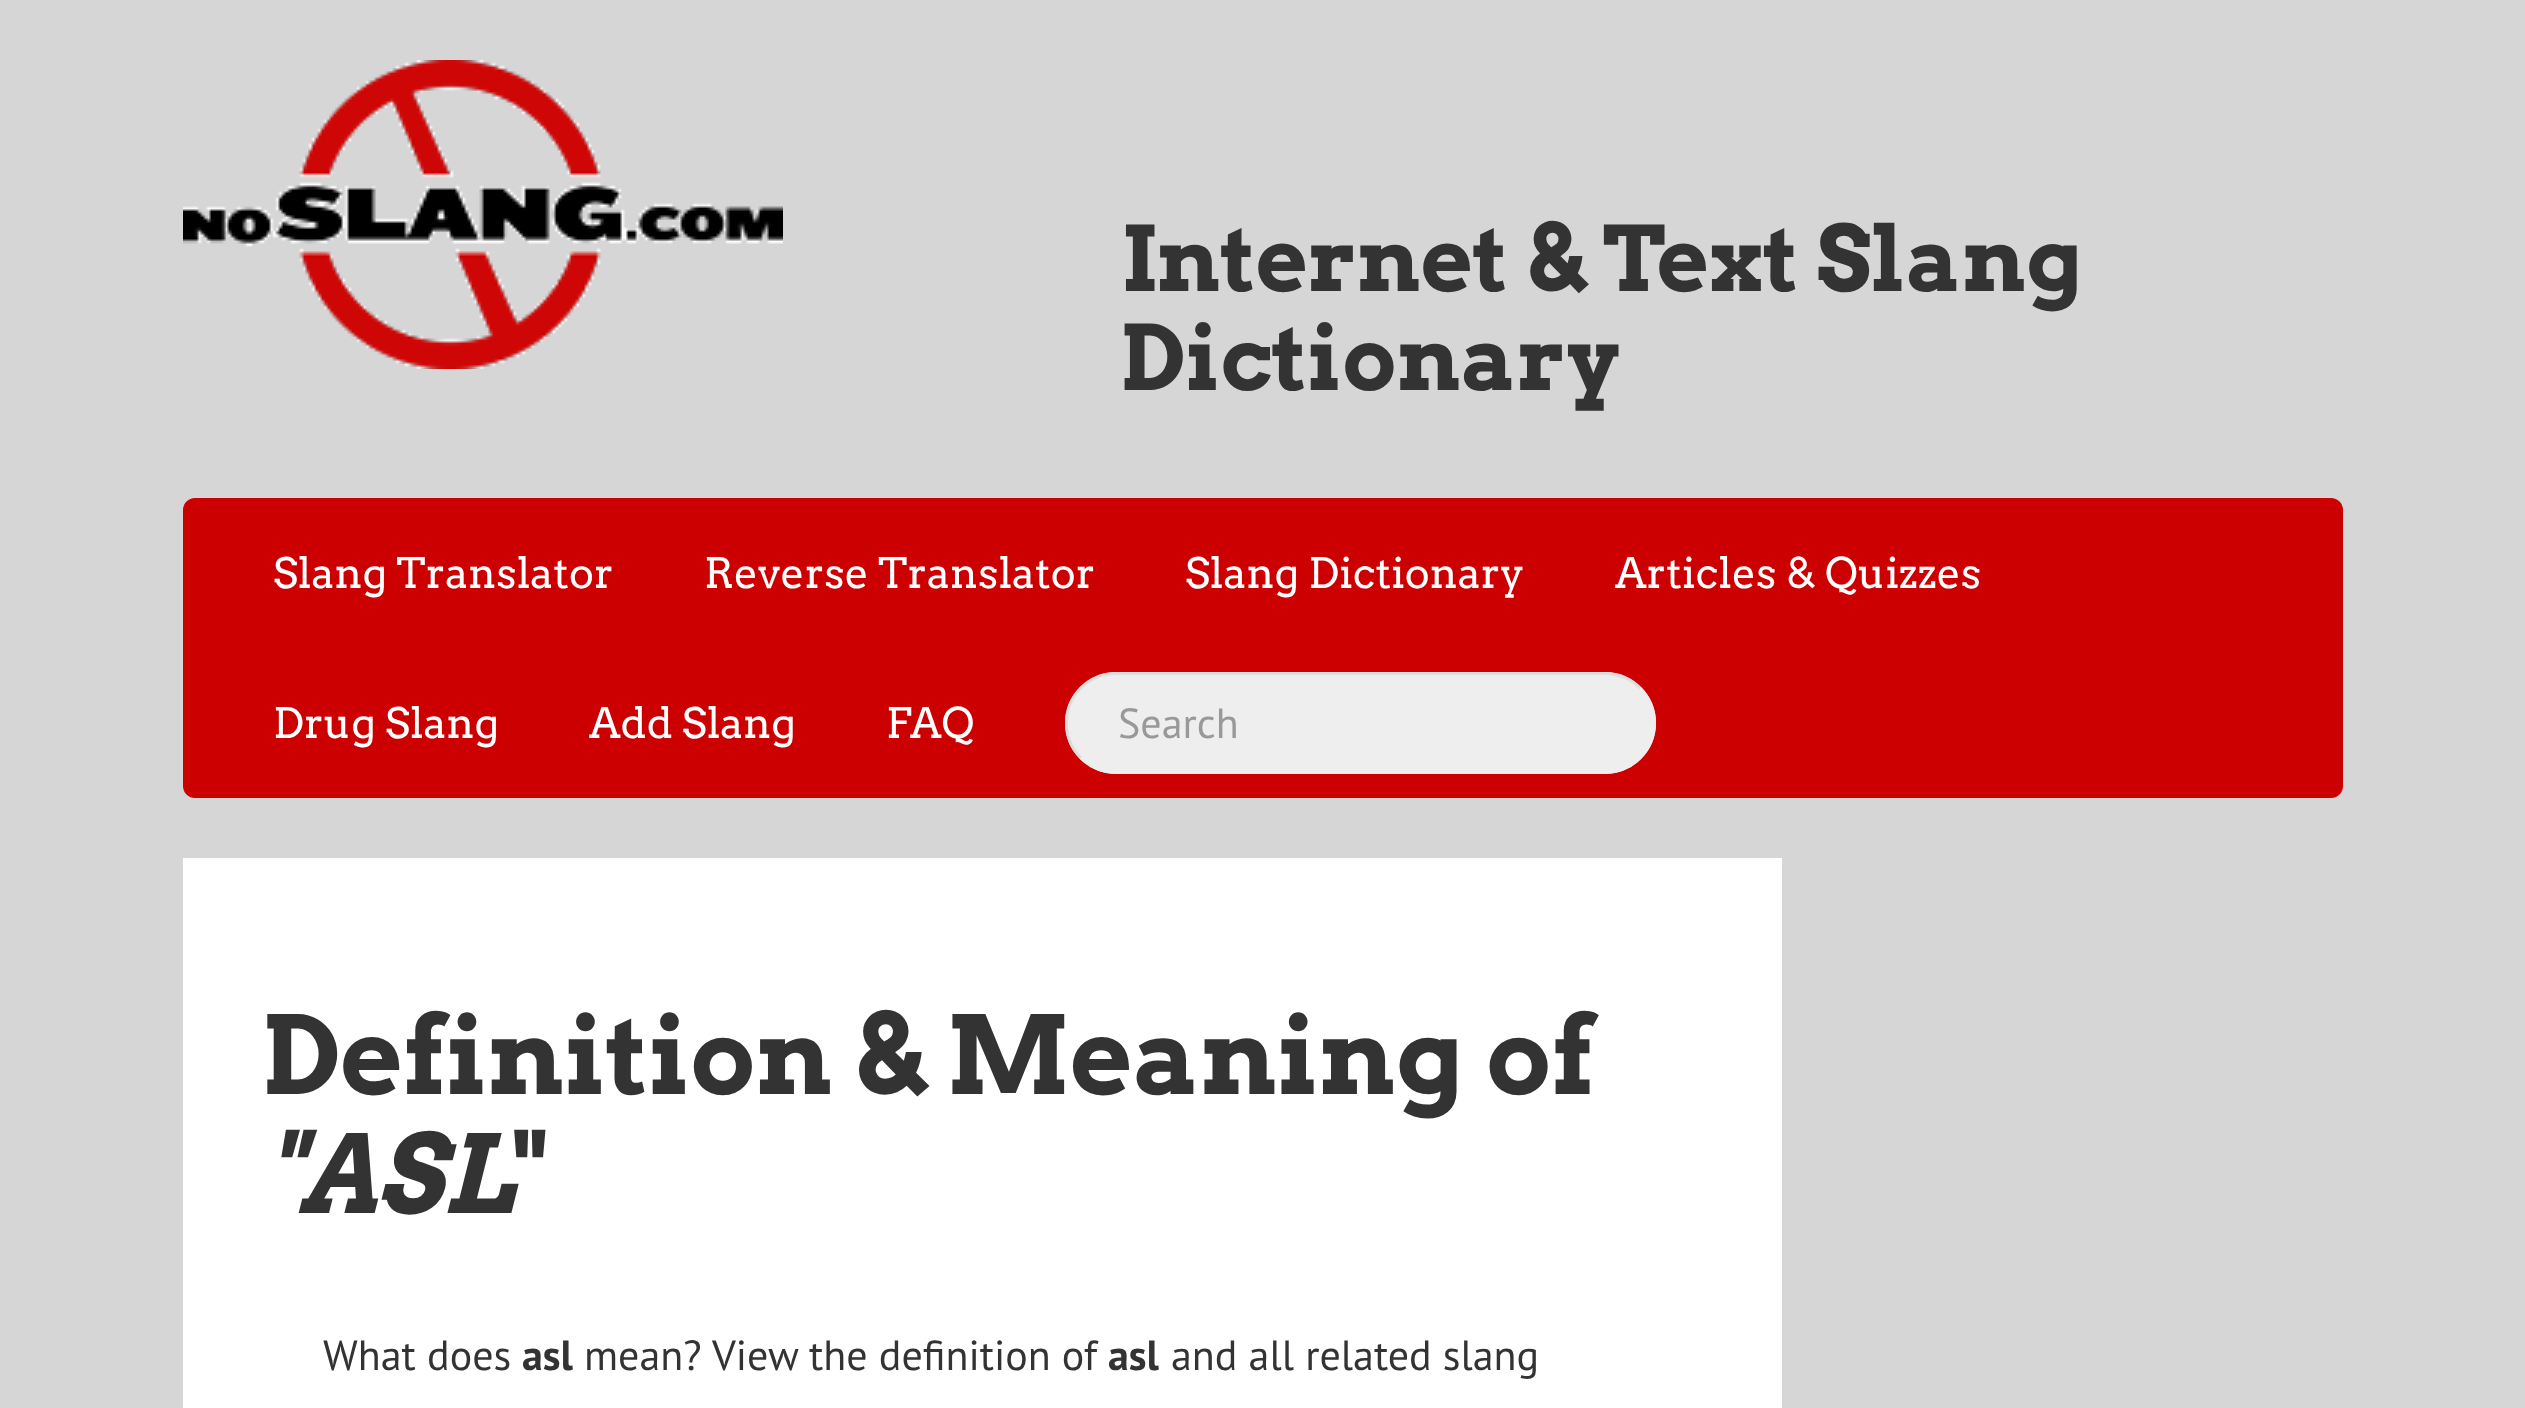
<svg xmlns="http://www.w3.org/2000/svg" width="2525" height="1408">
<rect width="100%" height="100%" fill="#d6d6d6"/>
<image x="183" y="60" width="600" height="309" href="media/1.png"/>
<text x="1121" y="291" style="font-family:Arvo;font-size:90px;font-weight:bold;fill:#333">Internet &amp; Text Slang</text>
<text x="1121" y="390" style="font-family:Arvo;font-size:90px;font-weight:bold;fill:#333">Dictionary</text>
<rect x="183" y="498" width="2160" height="300" rx="12" fill="#c00"/>
<text x="273" y="588" style="font-family:Arvo;font-size:42px;fill:#fff">Slang Translator</text>
<text x="704" y="588" style="font-family:Arvo;font-size:42px;fill:#fff">Reverse Translator</text>
<text x="1185" y="588" style="font-family:Arvo;font-size:42px;fill:#fff">Slang Dictionary</text>
<text x="1615" y="588" style="font-family:Arvo;font-size:42px;fill:#fff">Articles &amp; Quizzes</text>
<text x="273" y="738" style="font-family:Arvo;font-size:42px;fill:#fff">Drug Slang</text>
<text x="589" y="738" style="font-family:Arvo;font-size:42px;fill:#fff">Add Slang</text>
<text x="886" y="738" style="font-family:Arvo;font-size:42px;fill:#fff">FAQ</text>
<rect x="1065" y="672" width="591" height="102" rx="51" fill="#eee"/>
<path d="M1640 688c9.5 9.5 14.5 22 14.5 35c0 13-5 25.5-14.5 35c-9.5 9.5-22 14.5-35 14.5h-489c-13 0-25.5-5-35-14.5" fill="none" stroke="#eee" stroke-width="3"/>
<path d="M1081 758c-9.5-9.5-14.5-22-14.5-35c0-13 5-25.5 14.5-35c9.5-9.5 22-14.5 35-14.5h489c13 0 25.5 5 35 14.5" fill="none" stroke="#ddd" stroke-width="3"/>
<text x="1118" y="738" style="font-family:PT Sans;font-size:42px;fill:#999">Search</text>
<rect x="183" y="858" width="1599" height="550" fill="#fff"/>
<text x="263" y="1094" style="font-family:Arvo;font-size:108px;font-weight:bold;fill:#333">Definition &amp; Meaning of</text>
<text x="263" y="1213" style="font-family:Arvo;font-size:108px;font-weight:bold;font-style:italic;fill:#333">"ASL</text>
<text x="512" y="1213" style="font-family:Arvo;font-size:108px;font-weight:bold;fill:#333">"</text>
<text x="323" y="1370" style="font-family:PT Sans;font-size:42px;fill:#333">What does</text>
<text x="522" y="1370" style="font-family:PT Sans;font-size:42px;font-weight:bold;fill:#333">asl</text>
<text x="584" y="1370" style="font-family:PT Sans;font-size:42px;fill:#333">mean?</text>
<text x="712" y="1370" style="font-family:PT Sans;font-size:42px;fill:#333">View the definition of</text>
<text x="1108" y="1370" style="font-family:PT Sans;font-size:42px;font-weight:bold;fill:#333">asl</text>
<text x="1171" y="1370" style="font-family:PT Sans;font-size:42px;fill:#333">and all related slang</text>
</svg>
